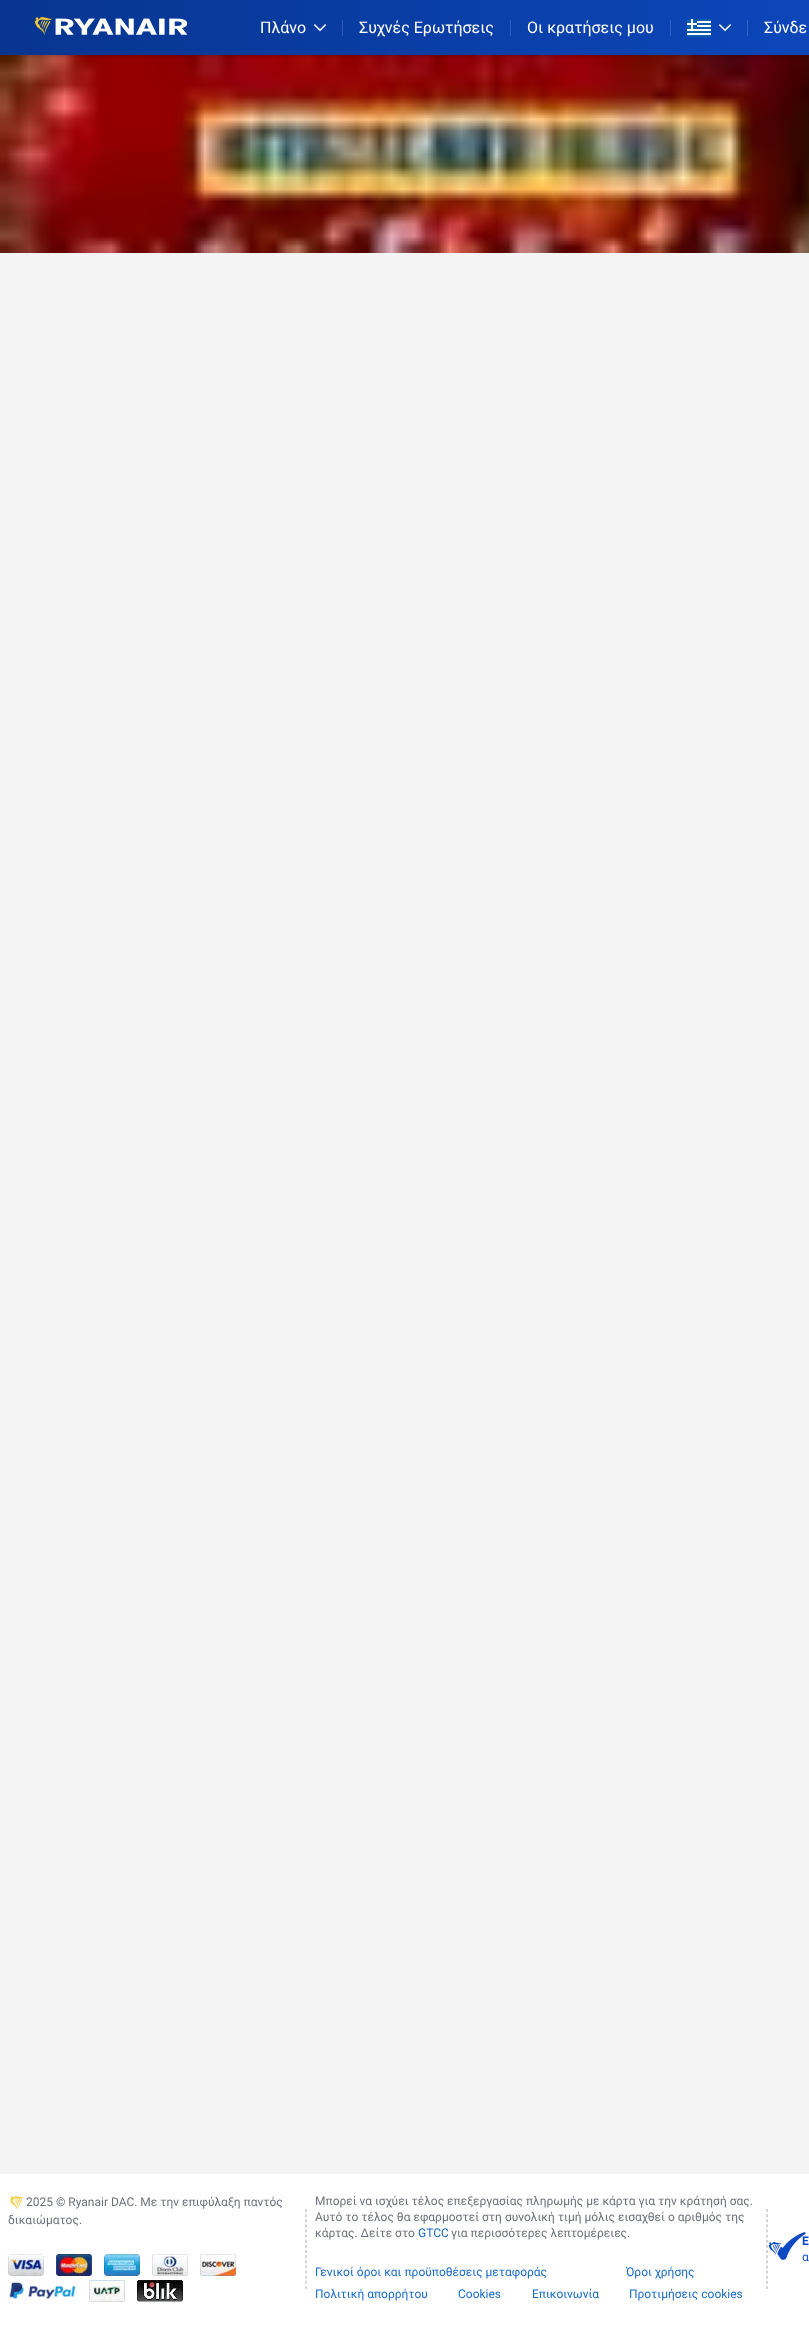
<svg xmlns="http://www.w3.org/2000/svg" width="809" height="2325">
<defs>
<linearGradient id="g1" gradientUnits="userSpaceOnUse" x1="0" y1="28" x2="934" y2="27"><stop offset="0" stop-color="#073590"/><stop offset="1" stop-color="#0d49c0"/></linearGradient>
</defs>
<rect width="100%" height="100%" fill="#f4f4f4"/>
<image x="0" y="55" width="809" height="198" href="media/5.png"/>
<rect y="1" width="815" height="55" fill="#00000033" filter="blur(2px)"/>
<rect width="809" height="55" fill="url(#g1)"/>
<image x="34" y="17" width="154" height="18" href="media/1.png"/>
<text x="260" y="33" style="font-family:Roboto;font-size:16px;fill:#fff">Πλάνο</text>
<image x="314" y="24" width="12" height="8" href="media/2.png"/>
<rect x="342" y="20" width="1" height="16" fill="#305bb1"/>
<text x="359" y="33" style="font-family:Roboto;font-size:16px;fill:#fff">Συχνές Ερωτήσεις</text>
<rect x="510" y="20" width="1" height="16" fill="#315fb8"/>
<text x="527" y="33" style="font-family:Roboto;font-size:16px;fill:#fff">Οι κρατήσεις μου</text>
<rect x="670" y="20" width="1" height="16" fill="#3261be"/>
<image x="687" y="19" width="24" height="18" href="media/3.png"/>
<image x="719" y="24" width="12" height="8" href="media/4.png"/>
<rect x="747" y="20" width="1" height="16" fill="#3363c2"/>
<text x="764" y="33" style="font-family:Roboto;font-size:16px;fill:#fff">Σύνδε</text>
<rect y="2174" width="809" height="151" fill="#fff"/>
<image x="10" y="2196" width="14" height="14" href="media/6.png"/>
<text x="26" y="2206" style="font-family:Roboto;font-size:12px;fill:#6c7079">2025 © Ryanair DAC. Με την επιφύλαξη παντός</text>
<text x="8" y="2224" style="font-family:Roboto;font-size:12px;fill:#6c7079">δικαιώματος.</text>
<image x="8" y="2254" width="36" height="22" href="media/7.png"/>
<image x="56" y="2254" width="36" height="22" href="media/8.png"/>
<image x="104" y="2254" width="36" height="22" href="media/9.png"/>
<image x="152" y="2254" width="36" height="22" href="media/10.png"/>
<image x="200" y="2254" width="36" height="22" href="media/11.png"/>
<image x="9" y="2282" width="67" height="17" href="media/12.png"/>
<image x="89" y="2280" width="36" height="22" href="media/13.png"/>
<image x="137" y="2280" width="46" height="22" href="media/14.png"/>
<path d="M306.5 2209v80" fill="none" stroke="#d2d6d9" stroke-dasharray="3 2.13"/>
<rect x="305" y="2288" width="2" height="1" fill="#d2d6d9"/>
<path d="M305.5 2209v80" fill="none" stroke="#d2d6d9" stroke-dasharray="3 2.13"/>
<text x="315" y="2205" style="font-family:Roboto;font-size:12px;fill:#6c7079">Μπορεί να ισχύει τέλος επεξεργασίας πληρωμής με κάρτα για την κράτησή σας.</text>
<text x="315" y="2221" style="font-family:Roboto;font-size:12px;fill:#6c7079">Αυτό το τέλος θα εφαρμοστεί στη συνολική τιμή μόλις εισαχθεί ο αριθμός της</text>
<text x="315" y="2237" style="font-family:Roboto;font-size:12px;fill:#6c7079">κάρτας. Δείτε στο</text>
<text x="418" y="2237" style="font-family:Roboto;font-size:12px;fill:#166bc8">GTCC</text>
<text x="451" y="2237" style="font-family:Roboto;font-size:12px;fill:#6c7079">για περισσότερες λεπτομέρειες.</text>
<text x="315" y="2276" style="font-family:Roboto;font-size:12px;fill:#166bc8">Γενικοί όροι και προϋποθέσεις μεταφοράς</text>
<text x="626" y="2276" style="font-family:Roboto;font-size:12px;fill:#166bc8">Όροι χρήσης</text>
<text x="315" y="2298" style="font-family:Roboto;font-size:12px;fill:#166bc8">Πολιτική απορρήτου</text>
<text x="458" y="2298" style="font-family:Roboto;font-size:12px;fill:#166bc8">Cookies</text>
<text x="532" y="2298" style="font-family:Roboto;font-size:12px;fill:#166bc8">Επικοινωνία</text>
<text x="629" y="2298" style="font-family:Roboto;font-size:12px;fill:#166bc8">Προτιμήσεις cookies</text>
<path d="M767.5 2209v80" fill="none" stroke="#d2d6d9" stroke-dasharray="3 2.13"/>
<rect x="766" y="2288" width="2" height="1" fill="#d2d6d9"/>
<path d="M766.5 2209v80" fill="none" stroke="#d2d6d9" stroke-dasharray="3 2.13"/>
<text x="802" y="2245" style="font-family:Roboto;font-size:12px;font-weight:bold;fill:#0d49c0">Ε</text>
<text x="802" y="2261" style="font-family:Roboto;font-size:12px;fill:#0d49c0">α</text>
<image x="768" y="2232" width="38" height="28" href="media/15.png"/>
</svg>
